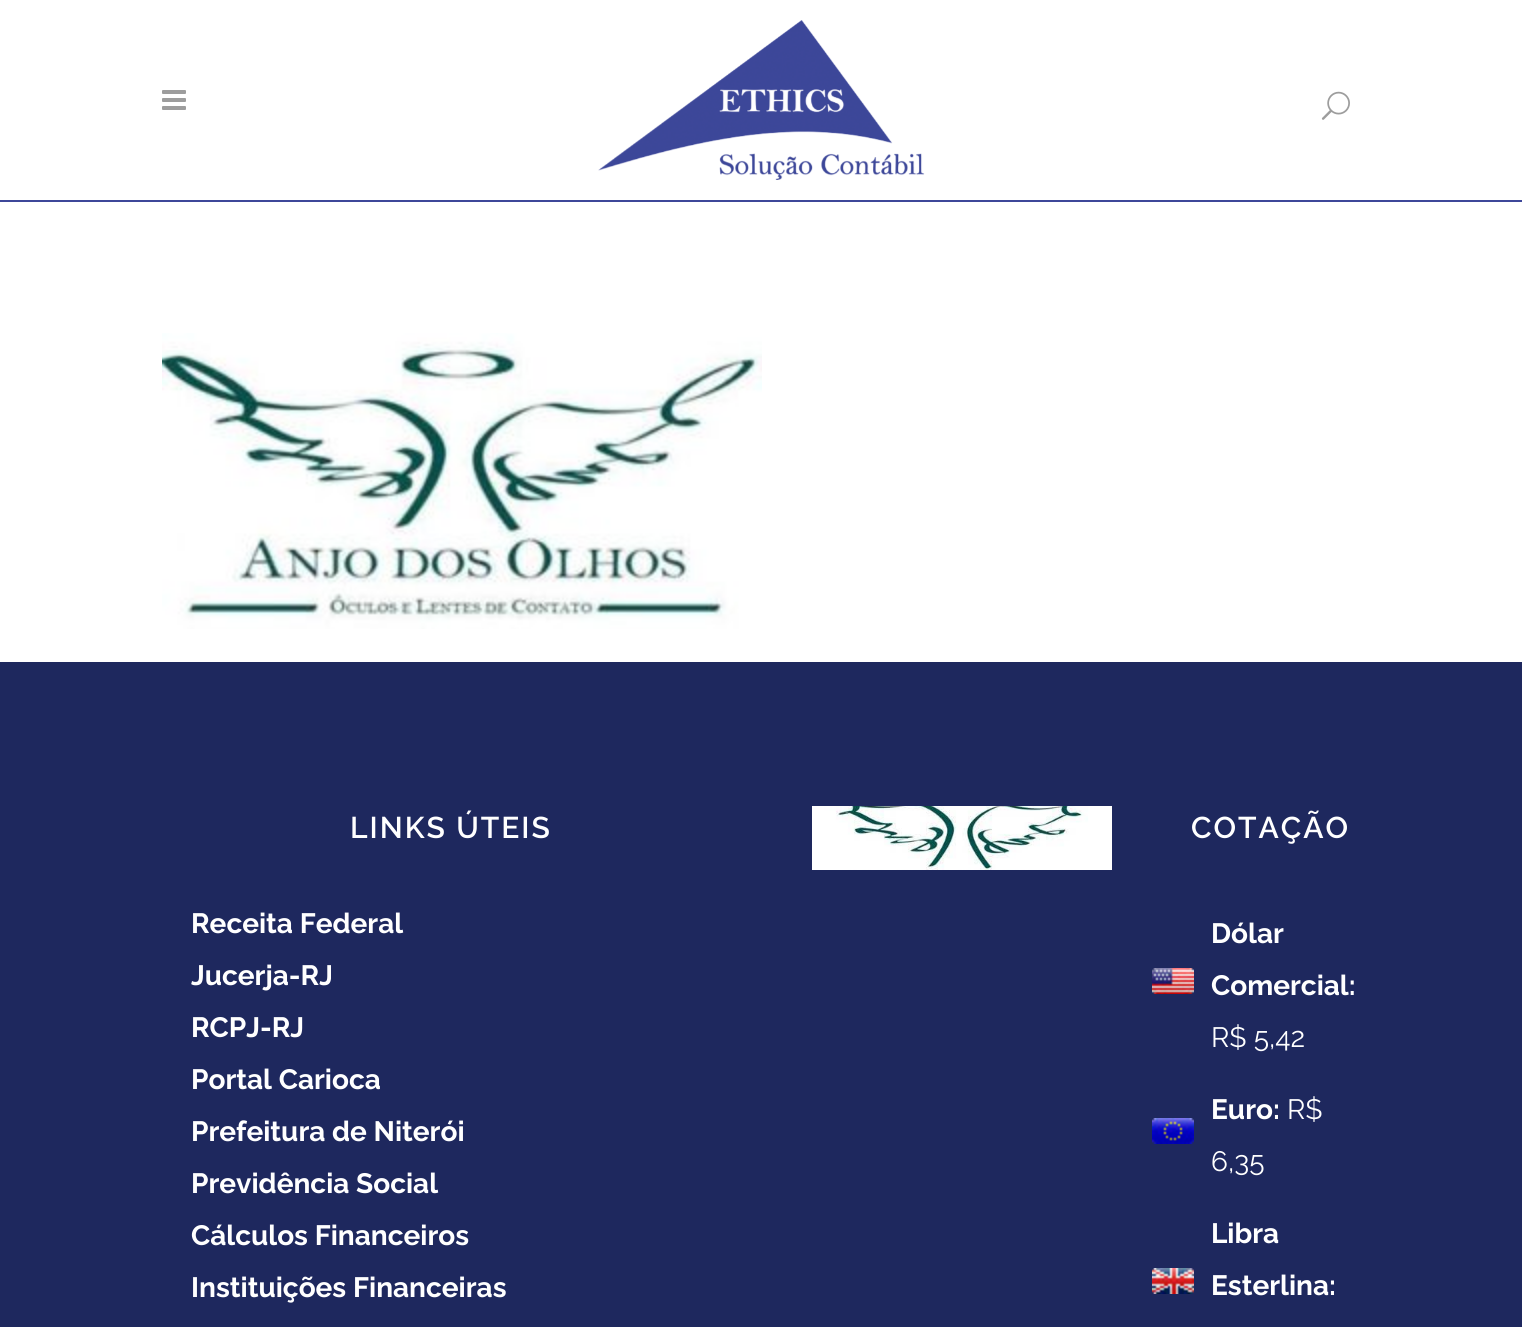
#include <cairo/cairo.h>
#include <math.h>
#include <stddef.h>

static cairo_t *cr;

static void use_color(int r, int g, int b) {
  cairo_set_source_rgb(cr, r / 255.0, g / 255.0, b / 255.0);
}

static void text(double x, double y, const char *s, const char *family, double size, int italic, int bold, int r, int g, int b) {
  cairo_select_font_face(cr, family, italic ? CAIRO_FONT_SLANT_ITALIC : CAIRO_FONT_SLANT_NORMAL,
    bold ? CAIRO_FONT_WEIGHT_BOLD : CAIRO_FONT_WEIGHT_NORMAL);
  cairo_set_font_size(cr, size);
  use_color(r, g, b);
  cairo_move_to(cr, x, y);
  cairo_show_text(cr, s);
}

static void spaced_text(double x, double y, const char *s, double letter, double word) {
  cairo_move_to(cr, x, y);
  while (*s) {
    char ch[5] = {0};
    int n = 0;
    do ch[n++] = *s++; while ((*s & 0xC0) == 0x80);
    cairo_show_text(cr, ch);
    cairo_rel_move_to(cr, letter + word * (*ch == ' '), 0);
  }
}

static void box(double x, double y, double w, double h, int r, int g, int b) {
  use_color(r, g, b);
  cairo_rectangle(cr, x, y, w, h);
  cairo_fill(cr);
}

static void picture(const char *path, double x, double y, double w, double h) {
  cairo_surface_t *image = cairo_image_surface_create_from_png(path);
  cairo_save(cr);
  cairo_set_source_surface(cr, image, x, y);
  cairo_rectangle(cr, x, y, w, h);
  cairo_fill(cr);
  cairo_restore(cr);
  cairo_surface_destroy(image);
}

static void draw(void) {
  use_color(255, 255, 255);
  cairo_paint(cr);
  box(0, 200, 1522, 2, 61, 71, 153);
  picture("img_01.png", 162, 90, 24, 20);
  picture("img_02.png", 598, 20, 327, 160);
  picture("img_03.png", 1321, 91, 29, 29);
  picture("img_04.png", 162, 333, 600, 296);
  box(0, 662, 1522, 665, 30, 40, 94);
  picture("img_05.png", 812, 806, 300, 64);
  picture("img_06.png", 1152, 968, 42, 26);
  picture("img_07.png", 1152, 1118, 42, 26);
  picture("img_08.png", 1152, 1268, 42, 26);
  cairo_select_font_face(cr, "Raleway SemiBold", CAIRO_FONT_SLANT_NORMAL, CAIRO_FONT_WEIGHT_NORMAL);
  cairo_set_font_size(cr, 30);
  use_color(255, 255, 255);
  spaced_text(350, 838, "LINKS ÚTEIS", 2, 0);
  text(191, 933, "Receita Federal", "Raleway", 28, 0, 1, 255, 255, 255);
  text(191, 985, "Jucerja-RJ", "Raleway", 28, 0, 1, 255, 255, 255);
  text(191, 1037, "RCPJ-RJ", "Raleway", 28, 0, 1, 255, 255, 255);
  text(191, 1089, "Portal Carioca", "Raleway", 28, 0, 1, 255, 255, 255);
  text(191, 1141, "Prefeitura de Niterói", "Raleway", 28, 0, 1, 255, 255, 255);
  text(191, 1193, "Previdência Social", "Raleway", 28, 0, 1, 255, 255, 255);
  text(191, 1245, "Cálculos Financeiros", "Raleway", 28, 0, 1, 255, 255, 255);
  text(191, 1297, "Instituições Financeiras", "Raleway", 28, 0, 1, 255, 255, 255);
  cairo_select_font_face(cr, "Raleway SemiBold", CAIRO_FONT_SLANT_NORMAL, CAIRO_FONT_WEIGHT_NORMAL);
  cairo_set_font_size(cr, 30);
  spaced_text(1191, 838, "COTAÇÃO", 2, 0);
  text(1211, 943, "Dólar", "Raleway", 28, 0, 1, 255, 255, 255);
  text(1211, 995, "Comercial:", "Raleway", 28, 0, 1, 255, 255, 255);
  text(1211, 1047, "R$ 5,42", "Raleway", 28, 0, 0, 255, 255, 255);
  text(1211, 1119, "Euro:", "Raleway", 28, 0, 1, 255, 255, 255);
  text(1287, 1119, "R$", "Raleway", 28, 0, 0, 255, 255, 255);
  text(1211, 1171, "6,35", "Raleway", 28, 0, 0, 255, 255, 255);
  text(1211, 1243, "Libra", "Raleway", 28, 0, 1, 255, 255, 255);
  text(1211, 1295, "Esterlina:", "Raleway", 28, 0, 1, 255, 255, 255);
}

int main(void) {
  cairo_surface_t *surface = cairo_image_surface_create(CAIRO_FORMAT_RGB24, 1522, 1327);
  cr = cairo_create(surface);
  cairo_font_options_t *options = cairo_font_options_create();
  cairo_font_options_set_hint_metrics(options, CAIRO_HINT_METRICS_OFF);
  cairo_font_options_set_hint_style(options, CAIRO_HINT_STYLE_NONE);
  cairo_set_font_options(cr, options);
  cairo_set_miter_limit(cr, 4);
  draw();
  cairo_surface_write_to_png(surface, "out.png");
  cairo_font_options_destroy(options);
  cairo_destroy(cr);
  cairo_surface_destroy(surface);
  return 0;
}
